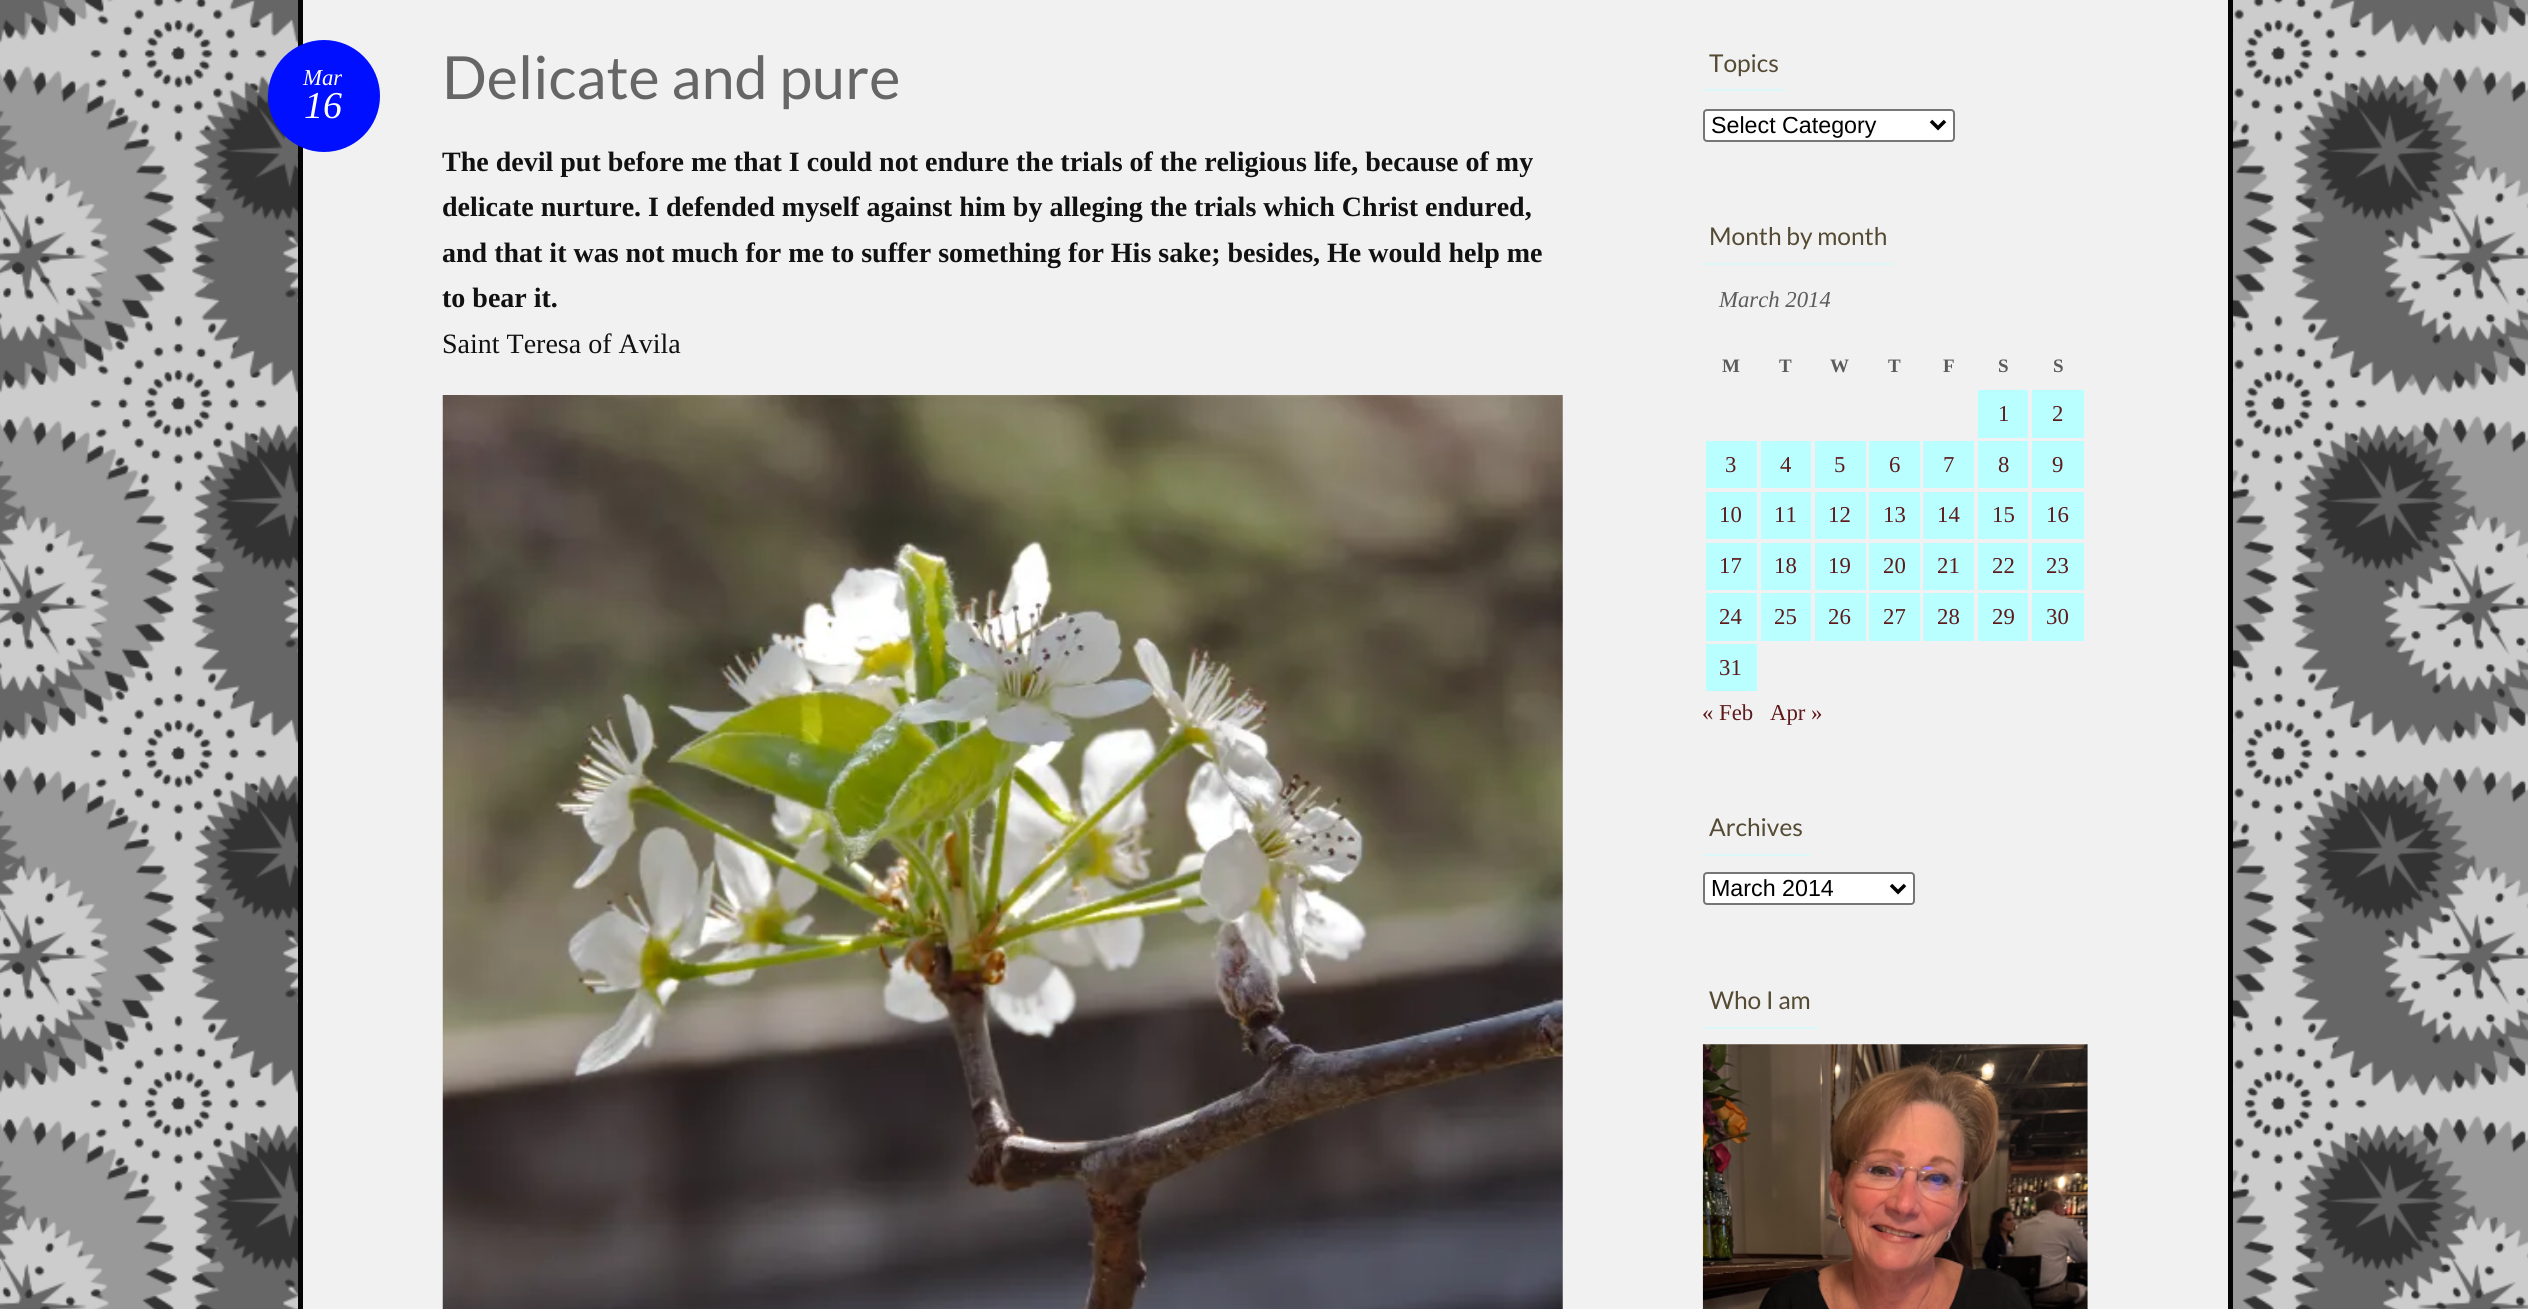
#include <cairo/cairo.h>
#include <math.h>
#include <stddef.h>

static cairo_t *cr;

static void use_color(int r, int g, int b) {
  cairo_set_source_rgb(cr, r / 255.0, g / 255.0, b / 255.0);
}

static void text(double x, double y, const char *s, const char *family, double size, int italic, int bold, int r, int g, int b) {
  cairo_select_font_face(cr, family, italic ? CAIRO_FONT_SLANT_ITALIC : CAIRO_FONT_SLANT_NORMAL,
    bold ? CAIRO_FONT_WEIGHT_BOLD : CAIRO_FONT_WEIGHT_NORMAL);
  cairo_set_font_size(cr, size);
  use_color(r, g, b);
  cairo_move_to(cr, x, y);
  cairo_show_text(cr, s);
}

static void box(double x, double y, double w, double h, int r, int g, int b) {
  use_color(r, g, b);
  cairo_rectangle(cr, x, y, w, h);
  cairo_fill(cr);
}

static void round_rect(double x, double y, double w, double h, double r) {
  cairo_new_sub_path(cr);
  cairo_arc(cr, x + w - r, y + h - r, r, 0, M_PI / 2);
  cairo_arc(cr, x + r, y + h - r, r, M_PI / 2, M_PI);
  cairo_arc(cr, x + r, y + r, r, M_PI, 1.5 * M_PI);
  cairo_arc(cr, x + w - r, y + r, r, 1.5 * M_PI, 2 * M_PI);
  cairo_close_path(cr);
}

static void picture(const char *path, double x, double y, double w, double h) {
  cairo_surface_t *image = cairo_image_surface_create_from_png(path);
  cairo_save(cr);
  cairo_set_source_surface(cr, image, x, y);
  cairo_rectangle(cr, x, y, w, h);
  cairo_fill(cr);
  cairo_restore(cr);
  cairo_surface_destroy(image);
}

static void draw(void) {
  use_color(255, 255, 255);
  cairo_paint(cr);
  picture("img_01.png", 0, 0, 2528, 1309);
  use_color(241, 241, 241);
  cairo_rectangle(cr, 300.5, -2.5, 1930, 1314);
  cairo_fill_preserve(cr);
  use_color(5, 5, 5);
  cairo_set_line_width(cr, 5);
  cairo_stroke(cr);
  use_color(0, 15, 255);
  cairo_arc(cr, 324, 96, 56, 0, 2 * M_PI);
  cairo_fill(cr);
  picture("img_02.png", 442, 395, 1121, 914);
  box(1703, 89, 82, 2, 219, 247, 247);
  use_color(255, 255, 255);
  round_rect(1704, 110, 250, 31, 3);
  cairo_fill_preserve(cr);
  use_color(118, 118, 118);
  cairo_set_line_width(cr, 2);
  cairo_stroke(cr);
  cairo_new_path(cr);
  cairo_move_to(cr, 1931, 121);
  cairo_line_to(cr, 1938, 128);
  cairo_line_to(cr, 1945, 121);
  use_color(0, 0, 0);
  cairo_set_line_width(cr, 3.5);
  cairo_stroke(cr);
  box(1703, 263, 191, 2, 219, 247, 247);
  box(1978, 390, 50, 48, 186, 255, 255);
  box(2032, 390, 52, 48, 186, 255, 255);
  box(1706, 441, 51, 47, 186, 255, 255);
  box(1761, 441, 50, 47, 186, 255, 255);
  box(1815, 441, 51, 47, 186, 255, 255);
  box(1869, 441, 51, 47, 186, 255, 255);
  box(1923, 441, 51, 47, 186, 255, 255);
  box(1978, 441, 50, 47, 186, 255, 255);
  box(2032, 441, 52, 47, 186, 255, 255);
  box(1706, 492, 51, 47, 186, 255, 255);
  box(1761, 492, 50, 47, 186, 255, 255);
  box(1815, 492, 51, 47, 186, 255, 255);
  box(1869, 492, 51, 47, 186, 255, 255);
  box(1923, 492, 51, 47, 186, 255, 255);
  box(1978, 492, 50, 47, 186, 255, 255);
  box(2032, 492, 52, 47, 186, 255, 255);
  box(1706, 543, 51, 47, 186, 255, 255);
  box(1761, 543, 50, 47, 186, 255, 255);
  box(1815, 543, 51, 47, 186, 255, 255);
  box(1869, 543, 51, 47, 186, 255, 255);
  box(1923, 543, 51, 47, 186, 255, 255);
  box(1978, 543, 50, 47, 186, 255, 255);
  box(2032, 543, 52, 47, 186, 255, 255);
  box(1706, 593, 51, 48, 186, 255, 255);
  box(1761, 593, 50, 48, 186, 255, 255);
  box(1815, 593, 51, 48, 186, 255, 255);
  box(1869, 593, 51, 48, 186, 255, 255);
  box(1923, 593, 51, 48, 186, 255, 255);
  box(1978, 593, 50, 48, 186, 255, 255);
  box(2032, 593, 52, 48, 186, 255, 255);
  box(1706, 644, 51, 47, 186, 255, 255);
  box(1703, 854, 107, 2, 219, 247, 247);
  use_color(255, 255, 255);
  round_rect(1704, 873, 210, 31, 3);
  cairo_fill_preserve(cr);
  use_color(118, 118, 118);
  cairo_set_line_width(cr, 2);
  cairo_stroke(cr);
  cairo_new_path(cr);
  cairo_move_to(cr, 1891, 885);
  cairo_line_to(cr, 1898, 892);
  cairo_line_to(cr, 1905, 885);
  use_color(0, 0, 0);
  cairo_set_line_width(cr, 3.5);
  cairo_stroke(cr);
  box(1703, 1027, 115, 2, 219, 247, 247);
  picture("img_03.png", 1702, 1044, 386, 265);
  text(303, 85, "Mar", "Liberation Serif", 22.75, 1, 0, 255, 255, 255);
  text(304, 118, "16", "Liberation Serif", 38, 1, 0, 255, 255, 255);
  text(442, 99, "Delicate and pure", "Lato", 59.5, 0, 0, 102, 102, 102);
  text(442, 171, "The devil put before me that I could not endure the trials of the religious life, because of my", "Liberation Serif", 28, 0, 1, 17, 17, 17);
  text(442, 216, "delicate nurture. I defended myself against him by alleging the trials which Christ endured,", "Liberation Serif", 28, 0, 1, 17, 17, 17);
  text(442, 262, "and that it was not much for me to suffer something for His sake; besides, He would help me", "Liberation Serif", 28, 0, 1, 17, 17, 17);
  text(442, 307, "to bear it.", "Liberation Serif", 28, 0, 1, 17, 17, 17);
  text(442, 353, "Saint Teresa of Avila", "Liberation Serif", 28, 0, 0, 17, 17, 17);
  text(1709, 72, "Topics", "Lato", 24.5, 0, 0, 85, 75, 52);
  text(1711, 133, "Select Category", "Liberation Sans", 23.25, 0, 0, 0, 0, 0);
  text(1709, 245, "Month by month", "Lato", 24.5, 0, 0, 85, 75, 52);
  text(1719, 307, "March 2014", "Liberation Serif", 22.75, 1, 0, 91, 91, 91);
  text(1722, 372, "M", "Liberation Serif", 19, 0, 1, 91, 91, 91);
  text(1779, 372, "T", "Liberation Serif", 19, 0, 1, 91, 91, 91);
  text(1830, 372, "W", "Liberation Serif", 19, 0, 1, 91, 91, 91);
  text(1888, 372, "T", "Liberation Serif", 19, 0, 1, 91, 91, 91);
  text(1943, 372, "F", "Liberation Serif", 19, 0, 1, 91, 91, 91);
  text(1998, 372, "S", "Liberation Serif", 19, 0, 1, 91, 91, 91);
  text(2053, 372, "S", "Liberation Serif", 19, 0, 1, 91, 91, 91);
  text(1998, 421, "1", "Liberation Serif", 22.75, 0, 0, 94, 25, 26);
  text(2052, 421, "2", "Liberation Serif", 22.75, 0, 0, 94, 25, 26);
  text(1725, 472, "3", "Liberation Serif", 22.75, 0, 0, 94, 25, 26);
  text(1780, 472, "4", "Liberation Serif", 22.75, 0, 0, 94, 25, 26);
  text(1834, 472, "5", "Liberation Serif", 22.75, 0, 0, 94, 25, 26);
  text(1889, 472, "6", "Liberation Serif", 22.75, 0, 0, 94, 25, 26);
  text(1943, 472, "7", "Liberation Serif", 22.75, 0, 0, 94, 25, 26);
  text(1998, 472, "8", "Liberation Serif", 22.75, 0, 0, 94, 25, 26);
  text(2052, 472, "9", "Liberation Serif", 22.75, 0, 0, 94, 25, 26);
  text(1719, 522, "10", "Liberation Serif", 22.75, 0, 0, 94, 25, 26);
  text(1774, 522, "11", "Liberation Serif", 22.75, 0, 0, 94, 25, 26);
  text(1828, 522, "12", "Liberation Serif", 22.75, 0, 0, 94, 25, 26);
  text(1883, 522, "13", "Liberation Serif", 22.75, 0, 0, 94, 25, 26);
  text(1937, 522, "14", "Liberation Serif", 22.75, 0, 0, 94, 25, 26);
  text(1992, 522, "15", "Liberation Serif", 22.75, 0, 0, 94, 25, 26);
  text(2046, 522, "16", "Liberation Serif", 22.75, 0, 0, 94, 25, 26);
  text(1719, 573, "17", "Liberation Serif", 22.75, 0, 0, 94, 25, 26);
  text(1774, 573, "18", "Liberation Serif", 22.75, 0, 0, 94, 25, 26);
  text(1828, 573, "19", "Liberation Serif", 22.75, 0, 0, 94, 25, 26);
  text(1883, 573, "20", "Liberation Serif", 22.75, 0, 0, 94, 25, 26);
  text(1937, 573, "21", "Liberation Serif", 22.75, 0, 0, 94, 25, 26);
  text(1992, 573, "22", "Liberation Serif", 22.75, 0, 0, 94, 25, 26);
  text(2046, 573, "23", "Liberation Serif", 22.75, 0, 0, 94, 25, 26);
  text(1719, 624, "24", "Liberation Serif", 22.75, 0, 0, 94, 25, 26);
  text(1774, 624, "25", "Liberation Serif", 22.75, 0, 0, 94, 25, 26);
  text(1828, 624, "26", "Liberation Serif", 22.75, 0, 0, 94, 25, 26);
  text(1883, 624, "27", "Liberation Serif", 22.75, 0, 0, 94, 25, 26);
  text(1937, 624, "28", "Liberation Serif", 22.75, 0, 0, 94, 25, 26);
  text(1992, 624, "29", "Liberation Serif", 22.75, 0, 0, 94, 25, 26);
  text(2046, 624, "30", "Liberation Serif", 22.75, 0, 0, 94, 25, 26);
  text(1719, 675, "31", "Liberation Serif", 22.75, 0, 0, 94, 25, 26);
  text(1702, 720, "« Feb", "Liberation Serif", 22.75, 0, 0, 94, 25, 26);
  text(1770, 720, "Apr »", "Liberation Serif", 22.75, 0, 0, 94, 25, 26);
  text(1709, 836, "Archives", "Lato", 24.5, 0, 0, 85, 75, 52);
  text(1711, 896, "March 2014", "Liberation Sans", 23.25, 0, 0, 0, 0, 0);
  text(1709, 1009, "Who I am", "Lato", 24.5, 0, 0, 85, 75, 52);
}

int main(void) {
  cairo_surface_t *surface = cairo_image_surface_create(CAIRO_FORMAT_RGB24, 2528, 1309);
  cr = cairo_create(surface);
  cairo_font_options_t *options = cairo_font_options_create();
  cairo_font_options_set_hint_metrics(options, CAIRO_HINT_METRICS_OFF);
  cairo_font_options_set_hint_style(options, CAIRO_HINT_STYLE_NONE);
  cairo_set_font_options(cr, options);
  cairo_set_miter_limit(cr, 4);
  draw();
  cairo_surface_write_to_png(surface, "out.png");
  cairo_font_options_destroy(options);
  cairo_destroy(cr);
  cairo_surface_destroy(surface);
  return 0;
}
